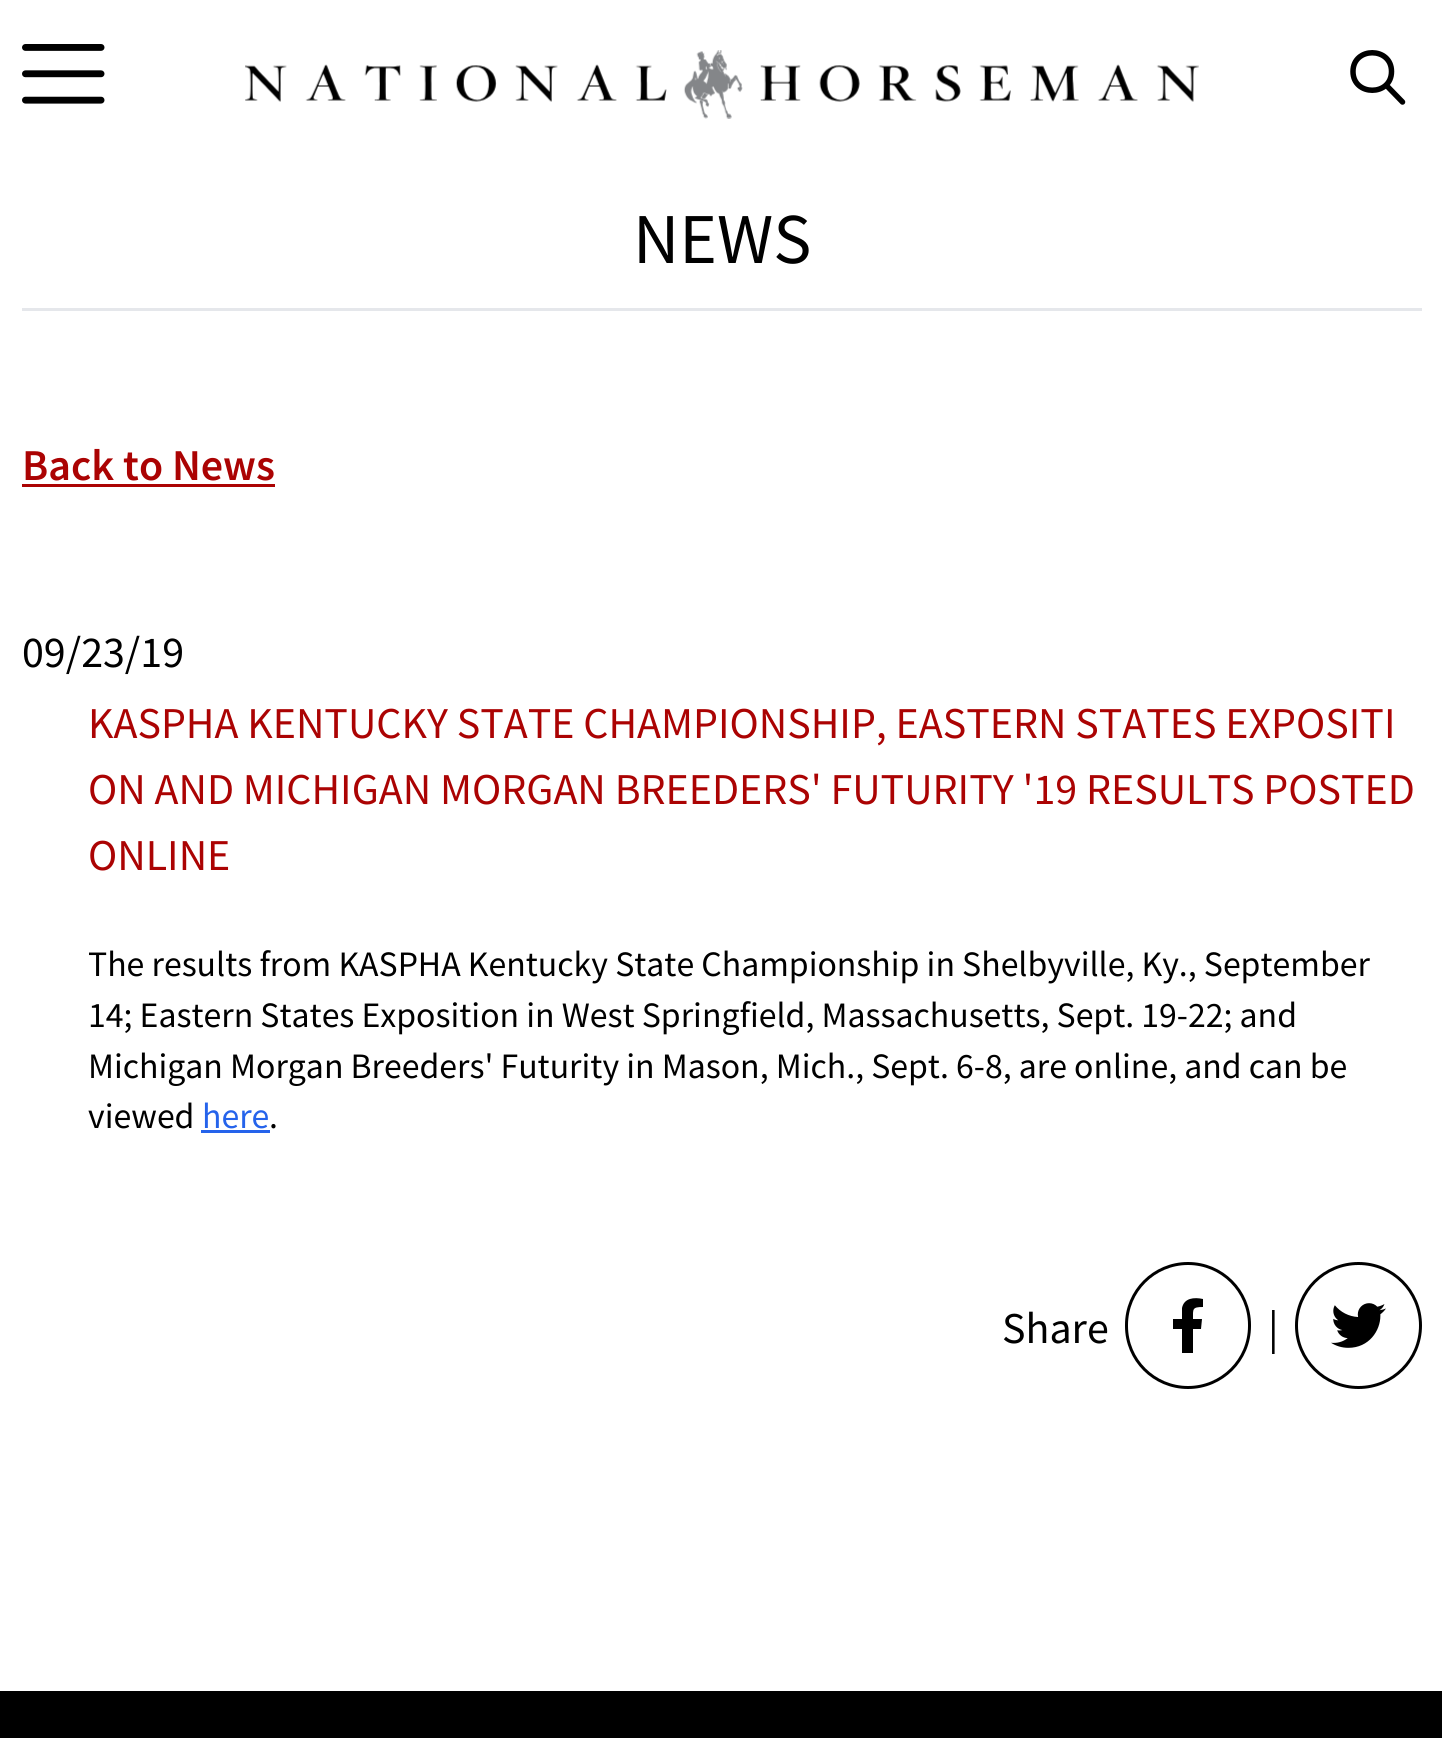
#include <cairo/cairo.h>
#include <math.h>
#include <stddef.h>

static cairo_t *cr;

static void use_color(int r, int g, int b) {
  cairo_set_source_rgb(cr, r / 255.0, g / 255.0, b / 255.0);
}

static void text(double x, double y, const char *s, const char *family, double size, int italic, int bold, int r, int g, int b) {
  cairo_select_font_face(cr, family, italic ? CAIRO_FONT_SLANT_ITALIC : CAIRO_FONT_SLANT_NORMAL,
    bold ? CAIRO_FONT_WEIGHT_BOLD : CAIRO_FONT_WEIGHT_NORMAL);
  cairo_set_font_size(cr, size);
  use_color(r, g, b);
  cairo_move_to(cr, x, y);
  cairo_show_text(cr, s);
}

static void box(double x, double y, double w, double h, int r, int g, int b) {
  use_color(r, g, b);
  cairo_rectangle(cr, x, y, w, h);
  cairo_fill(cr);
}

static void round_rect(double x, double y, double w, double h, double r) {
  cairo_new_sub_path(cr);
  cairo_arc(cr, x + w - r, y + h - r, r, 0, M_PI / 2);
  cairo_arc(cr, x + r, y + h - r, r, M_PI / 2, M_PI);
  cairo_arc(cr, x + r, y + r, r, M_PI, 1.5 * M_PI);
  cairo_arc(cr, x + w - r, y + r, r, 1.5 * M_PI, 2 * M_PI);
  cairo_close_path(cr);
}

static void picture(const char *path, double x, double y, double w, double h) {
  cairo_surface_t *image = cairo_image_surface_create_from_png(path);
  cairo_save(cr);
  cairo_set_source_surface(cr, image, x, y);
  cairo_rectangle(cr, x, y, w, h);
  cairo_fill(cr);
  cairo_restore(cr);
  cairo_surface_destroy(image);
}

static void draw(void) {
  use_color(255, 255, 255);
  cairo_paint(cr);
  picture("img_01.png", 22, 44, 83, 60);
  picture("img_02.png", 245, 50, 954, 69);
  cairo_new_path(cr);
  cairo_move_to(cr, 1402.5, 102);
  cairo_line_to(cr, 1386, 85);
  cairo_move_to(cr, 1391.5, 71.5);
  cairo_curve_to(cr, 1391.5, 96.5, 1353, 96.5, 1353, 71.5);
  cairo_curve_to(cr, 1353, 46.5, 1391.5, 46.5, 1391.5, 71.5);
  cairo_close_path(cr);
  use_color(0, 0, 0);
  cairo_set_line_width(cr, 5.5);
  cairo_set_line_cap(cr, CAIRO_LINE_CAP_ROUND);
  cairo_set_line_join(cr, CAIRO_LINE_JOIN_ROUND);
  cairo_stroke(cr);
  box(22, 308, 1400, 3, 229, 231, 235);
  box(22, 484, 253, 3, 171, 3, 3);
  box(201, 1130, 69, 3, 37, 99, 235);
  round_rect(1126.5, 1263.5, 123, 124, 61.5);
  use_color(0, 0, 0);
  cairo_set_line_width(cr, 3);
  cairo_set_line_cap(cr, CAIRO_LINE_CAP_BUTT);
  cairo_set_line_join(cr, CAIRO_LINE_JOIN_MITER);
  cairo_stroke(cr);
  cairo_new_path(cr);
  cairo_move_to(cr, 1201, 1329);
  cairo_line_to(cr, 1202, 1319);
  cairo_line_to(cr, 1193, 1319);
  cairo_curve_to(cr, 1193, 1309, 1192, 1307, 1203, 1307);
  cairo_line_to(cr, 1203, 1299);
  cairo_curve_to(cr, 1194, 1297, 1184, 1298, 1182, 1308);
  cairo_line_to(cr, 1182, 1319);
  cairo_line_to(cr, 1173, 1319);
  cairo_line_to(cr, 1173, 1329);
  cairo_line_to(cr, 1182, 1329);
  cairo_line_to(cr, 1182, 1353);
  cairo_line_to(cr, 1193, 1353);
  cairo_line_to(cr, 1193, 1329);
  cairo_close_path(cr);
  cairo_fill(cr);
  cairo_arc(cr, 1358.5, 1325.5, 62, 0, 2 * M_PI);
  cairo_stroke(cr);
  picture("img_03.png", 1331, 1303, 55, 45);
  box(0, 1691, 1442, 47, 0, 0, 0);
  text(633, 263, "NEWS", "Source Sans Pro", 71.5, 0, 0, 0, 0, 0);
  text(22, 480, "Back to News", "Source Sans Pro SemiBold", 44, 0, 0, 171, 3, 3);
  text(22, 667, "09/23/19", "Source Sans Pro", 44, 0, 0, 0, 0, 0);
  text(88, 738, "KASPHA KENTUCKY STATE CHAMPIONSHIP, EASTERN STATES EXPOSITI", "Source Sans Pro", 44, 0, 0, 171, 3, 3);
  text(88, 804, "ON AND MICHIGAN MORGAN BREEDERS' FUTURITY '19 RESULTS POSTED", "Source Sans Pro", 44, 0, 0, 171, 3, 3);
  text(88, 870, "ONLINE", "Source Sans Pro", 44, 0, 0, 171, 3, 3);
  text(88, 976, "The results from KASPHA Kentucky State Championship in Shelbyville, Ky., September", "Source Sans Pro", 35.75, 0, 0, 0, 0, 0);
  text(88, 1027, "14; Eastern States Exposition in West Springfield, Massachusetts, Sept. 19-22; and", "Source Sans Pro", 35.75, 0, 0, 0, 0, 0);
  text(88, 1078, "Michigan Morgan Breeders' Futurity in Mason, Mich., Sept. 6-8, are online, and can be", "Source Sans Pro", 35.75, 0, 0, 0, 0, 0);
  text(88, 1128, "viewed", "Source Sans Pro", 35.75, 0, 0, 0, 0, 0);
  text(202, 1128, "here", "Source Sans Pro", 35.75, 0, 0, 37, 99, 235);
  text(269, 1128, ".", "Source Sans Pro", 35.75, 0, 0, 0, 0, 0);
  text(1002, 1343, "Share", "Source Sans Pro", 44, 0, 0, 0, 0, 0);
  text(1268, 1343, "|", "Source Sans Pro", 44, 0, 0, 0, 0, 0);
}

int main(void) {
  cairo_surface_t *surface = cairo_image_surface_create(CAIRO_FORMAT_RGB24, 1442, 1738);
  cr = cairo_create(surface);
  cairo_font_options_t *options = cairo_font_options_create();
  cairo_font_options_set_hint_metrics(options, CAIRO_HINT_METRICS_OFF);
  cairo_font_options_set_hint_style(options, CAIRO_HINT_STYLE_NONE);
  cairo_set_font_options(cr, options);
  cairo_set_miter_limit(cr, 4);
  draw();
  cairo_surface_write_to_png(surface, "out.png");
  cairo_font_options_destroy(options);
  cairo_destroy(cr);
  cairo_surface_destroy(surface);
  return 0;
}
